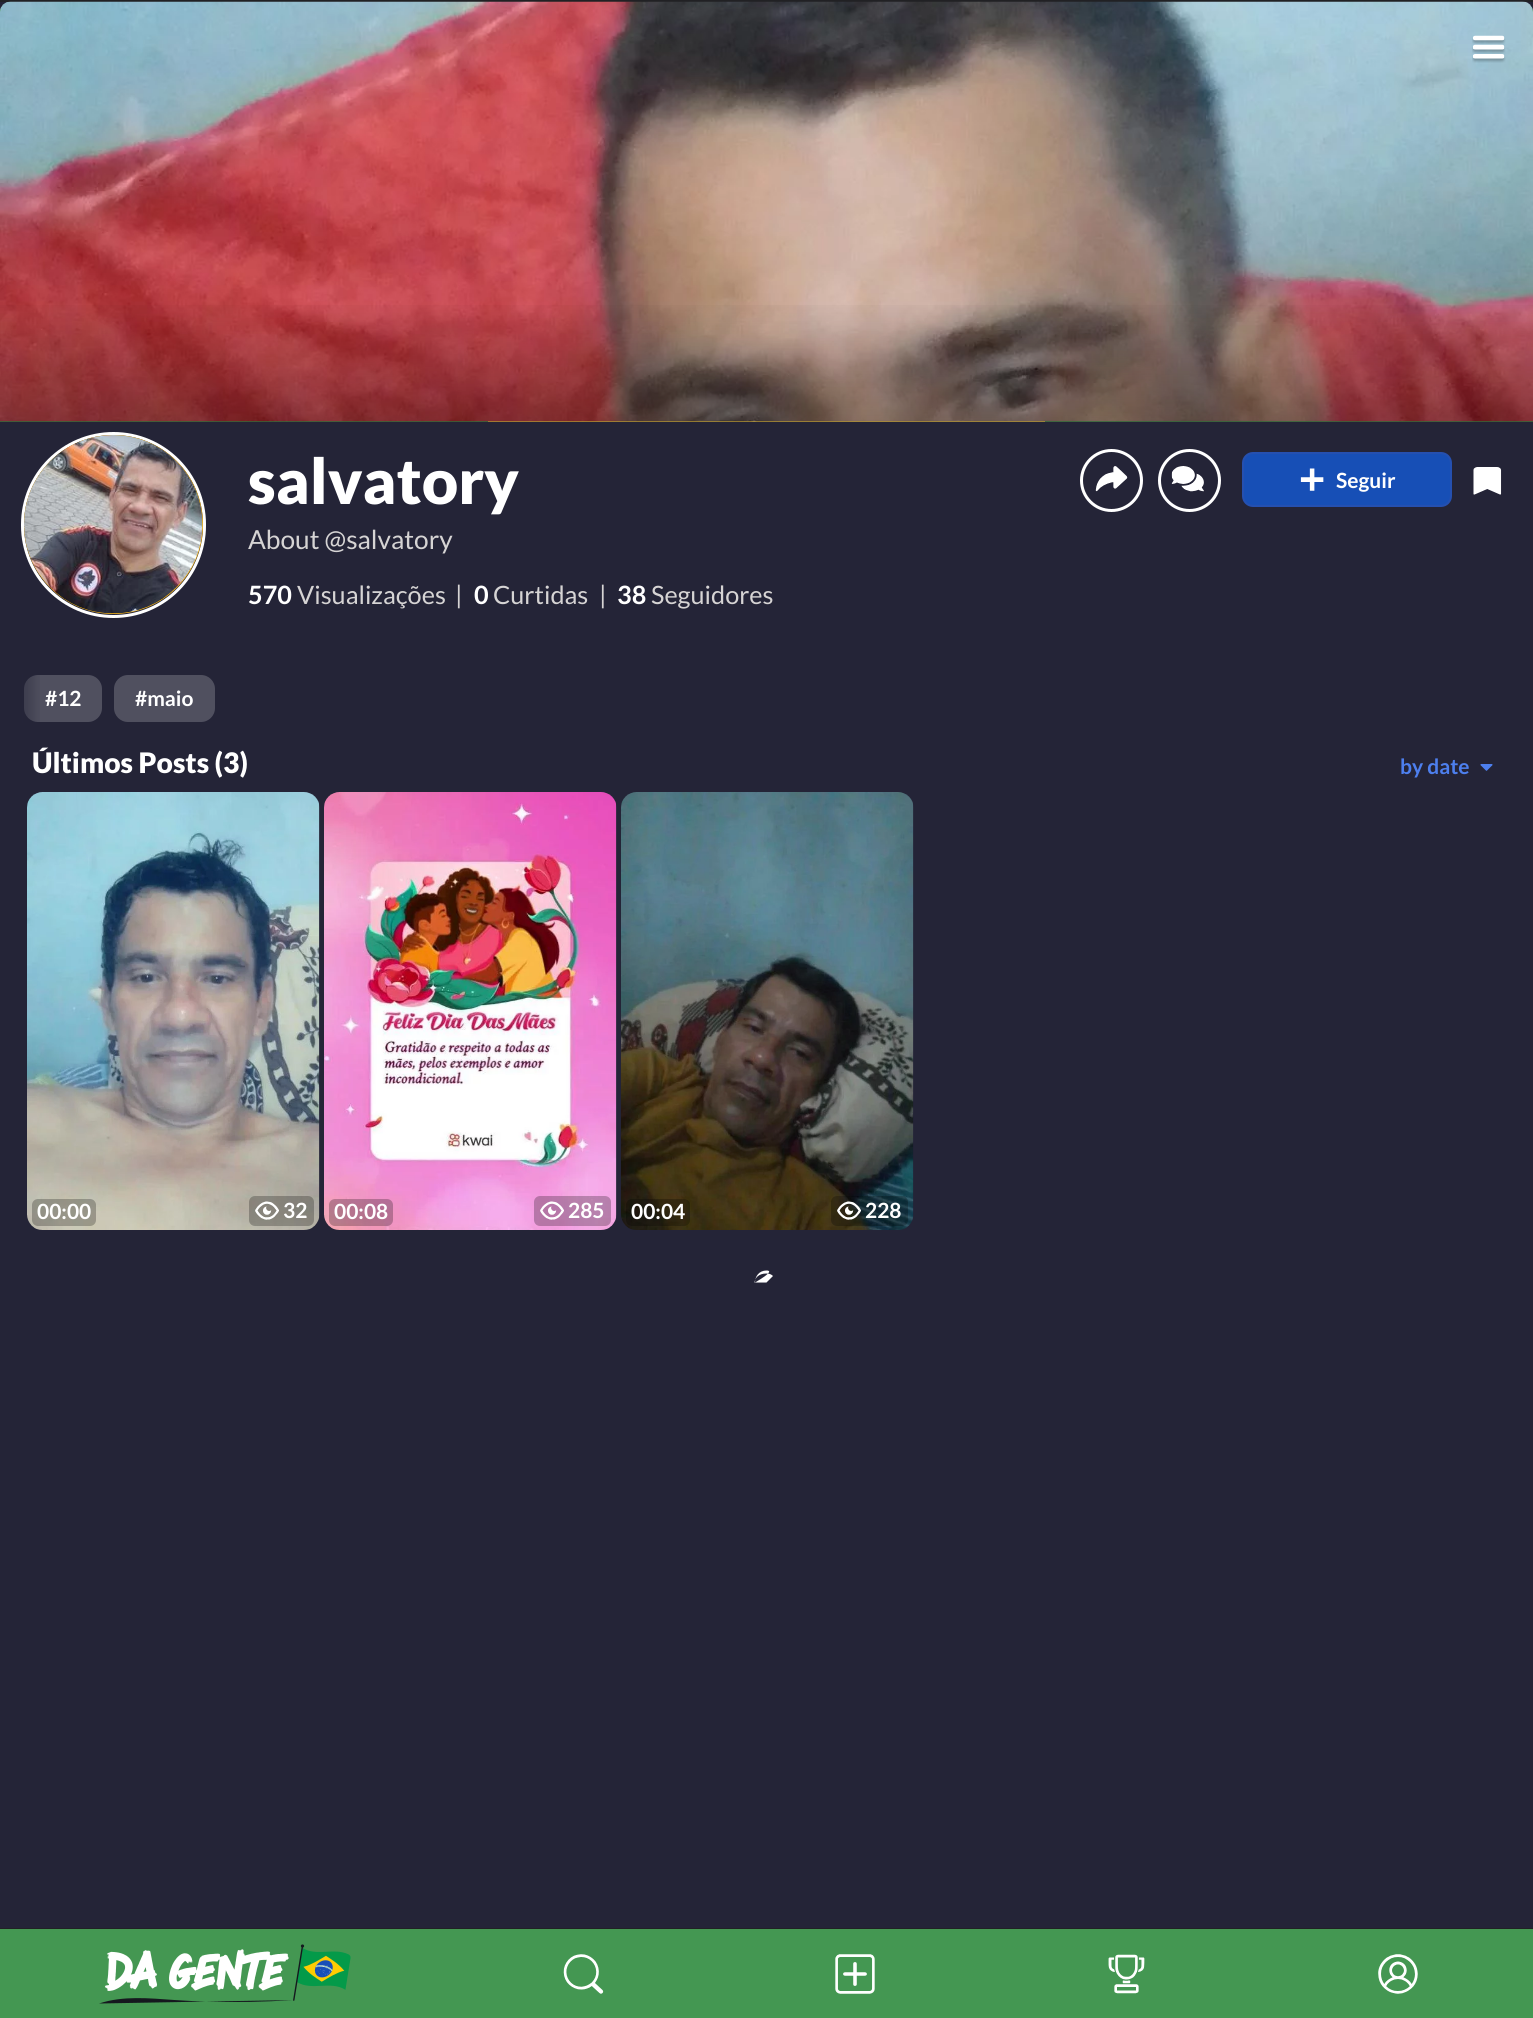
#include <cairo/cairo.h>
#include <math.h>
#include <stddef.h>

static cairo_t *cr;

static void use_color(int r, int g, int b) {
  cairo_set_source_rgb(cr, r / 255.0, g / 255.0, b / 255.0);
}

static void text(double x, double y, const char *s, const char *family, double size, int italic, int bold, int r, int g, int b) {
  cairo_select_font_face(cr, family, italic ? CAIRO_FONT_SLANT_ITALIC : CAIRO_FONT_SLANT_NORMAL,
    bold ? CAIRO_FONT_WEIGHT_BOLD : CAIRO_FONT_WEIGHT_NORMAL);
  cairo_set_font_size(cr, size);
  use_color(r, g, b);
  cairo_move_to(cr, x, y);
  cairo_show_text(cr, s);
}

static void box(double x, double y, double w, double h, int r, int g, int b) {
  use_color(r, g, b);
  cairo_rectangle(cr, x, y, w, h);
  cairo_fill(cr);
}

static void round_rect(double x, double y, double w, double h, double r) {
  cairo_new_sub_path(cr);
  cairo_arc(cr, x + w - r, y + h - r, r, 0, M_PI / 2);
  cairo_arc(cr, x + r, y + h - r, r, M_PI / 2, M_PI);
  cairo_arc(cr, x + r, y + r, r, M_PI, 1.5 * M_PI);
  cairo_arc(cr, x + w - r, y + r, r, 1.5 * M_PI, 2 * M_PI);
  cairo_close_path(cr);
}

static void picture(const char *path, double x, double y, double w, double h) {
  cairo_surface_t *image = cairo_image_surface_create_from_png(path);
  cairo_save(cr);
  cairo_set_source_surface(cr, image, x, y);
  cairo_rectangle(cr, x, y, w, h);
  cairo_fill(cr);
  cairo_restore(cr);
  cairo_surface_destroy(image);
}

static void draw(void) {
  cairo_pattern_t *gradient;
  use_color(33, 33, 36);
  cairo_paint(cr);
  box(0, 2, 1533, 1926, 36, 36, 55);
  gradient = cairo_pattern_create_linear(1255, 700, 278, -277);
  cairo_pattern_add_color_stop_rgba(gradient, 0.25, 0.267, 0.592, 0.322, 1);
  cairo_pattern_add_color_stop_rgba(gradient, 0.25, 0.969, 0.804, 0.275, 1);
  cairo_set_source(cr, gradient);
  cairo_pattern_destroy(gradient);
  cairo_new_path(cr);
  cairo_move_to(cr, 11, 2);
  cairo_line_to(cr, 1522, 2);
  cairo_curve_to(cr, 1528, 2, 1533, 7, 1533, 13);
  cairo_line_to(cr, 1533, 422);
  cairo_line_to(cr, 0, 422);
  cairo_line_to(cr, 0, 13);
  cairo_curve_to(cr, 0, 7, 5, 2, 11, 2);
  cairo_close_path(cr);
  cairo_fill(cr);
  gradient = cairo_pattern_create_linear(278, 700, 1255, -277);
  cairo_pattern_add_color_stop_rgba(gradient, 0.25, 0.267, 0.592, 0.322, 1);
  cairo_pattern_add_color_stop_rgba(gradient, 0.25, 0.267, 0.592, 0.322, 0);
  cairo_set_source(cr, gradient);
  cairo_pattern_destroy(gradient);
  cairo_new_path(cr);
  cairo_move_to(cr, 11, 2);
  cairo_line_to(cr, 1522, 2);
  cairo_curve_to(cr, 1528, 2, 1533, 7, 1533, 13);
  cairo_line_to(cr, 1533, 422);
  cairo_line_to(cr, 0, 422);
  cairo_line_to(cr, 0, 13);
  cairo_curve_to(cr, 0, 7, 5, 2, 11, 2);
  cairo_close_path(cr);
  cairo_fill(cr);
  gradient = cairo_pattern_create_linear(1255, -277, 278, 700);
  cairo_pattern_add_color_stop_rgba(gradient, 0.25, 0.267, 0.592, 0.322, 1);
  cairo_pattern_add_color_stop_rgba(gradient, 0.25, 0.267, 0.592, 0.322, 0);
  cairo_set_source(cr, gradient);
  cairo_pattern_destroy(gradient);
  cairo_new_path(cr);
  cairo_move_to(cr, 11, 2);
  cairo_line_to(cr, 1522, 2);
  cairo_curve_to(cr, 1528, 2, 1533, 7, 1533, 13);
  cairo_line_to(cr, 1533, 422);
  cairo_line_to(cr, 0, 422);
  cairo_line_to(cr, 0, 13);
  cairo_curve_to(cr, 0, 7, 5, 2, 11, 2);
  cairo_close_path(cr);
  cairo_fill(cr);
  gradient = cairo_pattern_create_linear(278, -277, 1255, 700);
  cairo_pattern_add_color_stop_rgba(gradient, 0.25, 0.267, 0.592, 0.322, 1);
  cairo_pattern_add_color_stop_rgba(gradient, 0.25, 0.267, 0.592, 0.322, 0);
  cairo_set_source(cr, gradient);
  cairo_pattern_destroy(gradient);
  cairo_new_path(cr);
  cairo_move_to(cr, 11, 2);
  cairo_line_to(cr, 1522, 2);
  cairo_curve_to(cr, 1528, 2, 1533, 7, 1533, 13);
  cairo_line_to(cr, 1533, 422);
  cairo_line_to(cr, 0, 422);
  cairo_line_to(cr, 0, 13);
  cairo_curve_to(cr, 0, 7, 5, 2, 11, 2);
  cairo_close_path(cr);
  cairo_fill(cr);
  picture("img_02.png", 0, 1, 1533, 421);
  picture("img_01.png", 1472, 35, 34, 28);
  gradient = cairo_pattern_create_linear(767, 422, 767, 1.5);
  cairo_pattern_add_color_stop_rgba(gradient, 0, 0, 0, 0, 0.3);
  cairo_pattern_add_color_stop_rgba(gradient, 0.3, 0, 0, 0, 0);
  cairo_set_source(cr, gradient);
  cairo_pattern_destroy(gradient);
  cairo_rectangle(cr, 0, 305, 1533, 117);
  cairo_fill(cr);
  round_rect(22.5, 433.5, 182, 183, 91);
  use_color(255, 255, 255);
  cairo_set_line_width(cr, 3);
  cairo_stroke(cr);
  use_color(251, 184, 22);
  cairo_arc(cr, 113.5, 524.5, 89.5, 0, 2 * M_PI);
  cairo_fill(cr);
  picture("img_03.png", 24, 435, 179, 179);
  cairo_arc(cr, 1111.5, 480.5, 30, 0, 2 * M_PI);
  use_color(255, 255, 255);
  cairo_stroke(cr);
  picture("img_04.png", 1095, 466, 33, 26);
  cairo_arc(cr, 1189.5, 480.5, 30, 0, 2 * M_PI);
  cairo_stroke(cr);
  picture("img_05.png", 1171, 466, 33, 26);
  use_color(23, 79, 182);
  round_rect(1243, 453, 208, 53, 10);
  cairo_fill_preserve(cr);
  use_color(37, 80, 176);
  cairo_set_line_width(cr, 2);
  cairo_stroke(cr);
  picture("img_06.png", 1300, 468, 24, 23);
  picture("img_07.png", 1473, 467, 29, 28);
  use_color(80, 80, 95);
  round_rect(22.5, 673.5, 81, 50, 15.5);
  cairo_fill_preserve(cr);
  use_color(36, 36, 55);
  cairo_set_line_width(cr, 3);
  cairo_stroke(cr);
  gradient = cairo_pattern_create_linear(42, 698, 0, 698);
  cairo_pattern_add_color_stop_rgba(gradient, 0, 0.141, 0.141, 0.216, 0);
  cairo_pattern_add_color_stop_rgba(gradient, 1, 0.141, 0.141, 0.216, 1);
  cairo_set_source(cr, gradient);
  cairo_pattern_destroy(gradient);
  cairo_rectangle(cr, 21, 674, 19, 49);
  cairo_fill(cr);
  use_color(80, 80, 95);
  round_rect(112.5, 673.5, 104, 50, 15.5);
  cairo_fill_preserve(cr);
  use_color(36, 36, 55);
  cairo_stroke(cr);
  picture("img_08.png", 1480, 764, 13, 7);
  picture("img_09.png", 27, 792, 293, 438);
  cairo_set_source_rgba(cr, 0, 0, 0, 0.25);
  round_rect(32, 1199, 64, 27, 6);
  cairo_fill(cr);
  round_rect(249, 1196, 65, 30, 6);
  cairo_fill(cr);
  picture("img_10.png", 255, 1201, 24, 19);
  picture("img_11.png", 324, 792, 293, 438);
  round_rect(329, 1199, 64, 27, 6);
  cairo_fill(cr);
  round_rect(534, 1196, 77, 30, 6);
  cairo_fill(cr);
  picture("img_12.png", 540, 1201, 24, 19);
  picture("img_13.png", 621, 792, 293, 438);
  round_rect(626, 1199, 64, 27, 6);
  cairo_fill(cr);
  round_rect(831, 1196, 77, 30, 6);
  cairo_fill(cr);
  picture("img_14.png", 837, 1201, 24, 19);
  use_color(255, 255, 255);
  cairo_set_fill_rule(cr, CAIRO_FILL_RULE_EVEN_ODD);
  cairo_new_path(cr);
  cairo_move_to(cr, 766.5, 1273.5);
  cairo_curve_to(cr, 769.5, 1273.5, 771.5, 1274.5, 773, 1276);
  cairo_line_to(cr, 766.5, 1282.5);
  cairo_line_to(cr, 754.5, 1282.5);
  cairo_curve_to(cr, 755, 1278, 758.5, 1273.5, 766.5, 1273.5);
  cairo_close_path(cr);
  cairo_move_to(cr, 766.5, 1270.5);
  cairo_curve_to(cr, 759, 1270.5, 755, 1276.5, 755, 1282.5);
  cairo_curve_to(cr, 773, 1272, 770, 1270.5, 766.5, 1270.5);
  cairo_close_path(cr);
  cairo_fill(cr);
  box(0, 1929, 1533, 89, 68, 151, 82);
  picture("img_15.png", 99, 1944, 252, 60);
  picture("img_16.png", 563, 1954, 41, 40);
  picture("img_17.png", 835, 1954, 40, 40);
  picture("img_18.png", 1108, 1954, 37, 40);
  picture("img_19.png", 1378, 1954, 40, 40);
  text(248, 504, "salvatory", "Lato Black", 63, 0, 0, 255, 255, 255);
  text(248, 549, "About @salvatory", "Lato", 26.25, 0, 0, 214, 212, 212);
  text(1336, 488, "Seguir", "Lato", 21, 0, 1, 255, 255, 255);
  text(248, 604, "570", "Lato", 25.25, 0, 1, 255, 255, 255);
  text(297, 604, "Visualizações", "Lato", 25.25, 0, 0, 214, 212, 212);
  text(455, 604, "|", "Lato", 25.25, 0, 0, 214, 212, 212);
  text(474, 604, "0", "Lato", 25.25, 0, 1, 255, 255, 255);
  text(493, 604, "Curtidas", "Lato", 25.25, 0, 0, 214, 212, 212);
  text(599, 604, "|", "Lato", 25.25, 0, 0, 214, 212, 212);
  text(617, 604, "38", "Lato", 25.25, 0, 1, 255, 255, 255);
  text(651, 604, "Seguidores", "Lato", 25.25, 0, 0, 214, 212, 212);
  text(45, 706, "#12", "Lato", 21, 0, 1, 255, 255, 255);
  text(135, 706, "#maio", "Lato", 21, 0, 1, 255, 255, 255);
  text(32, 773, "Últimos Posts (3)", "Lato Black", 28.25, 0, 0, 255, 255, 255);
  text(1400, 774, "by date", "Lato", 21, 0, 1, 77, 127, 238);
  text(37, 1219, "00:00", "Lato", 21, 0, 1, 255, 255, 255);
  text(283, 1218, "32", "Lato", 21, 0, 1, 255, 255, 255);
  text(334, 1219, "00:08", "Lato", 21, 0, 1, 255, 255, 255);
  text(568, 1218, "285", "Lato", 21, 0, 1, 255, 255, 255);
  text(631, 1219, "00:04", "Lato", 21, 0, 1, 255, 255, 255);
  text(865, 1218, "228", "Lato", 21, 0, 1, 255, 255, 255);
}

int main(void) {
  cairo_surface_t *surface = cairo_image_surface_create(CAIRO_FORMAT_RGB24, 1533, 2018);
  cr = cairo_create(surface);
  cairo_font_options_t *options = cairo_font_options_create();
  cairo_font_options_set_hint_metrics(options, CAIRO_HINT_METRICS_OFF);
  cairo_font_options_set_hint_style(options, CAIRO_HINT_STYLE_NONE);
  cairo_set_font_options(cr, options);
  cairo_set_miter_limit(cr, 4);
  draw();
  cairo_surface_write_to_png(surface, "out.png");
  cairo_font_options_destroy(options);
  cairo_destroy(cr);
  cairo_surface_destroy(surface);
  return 0;
}
